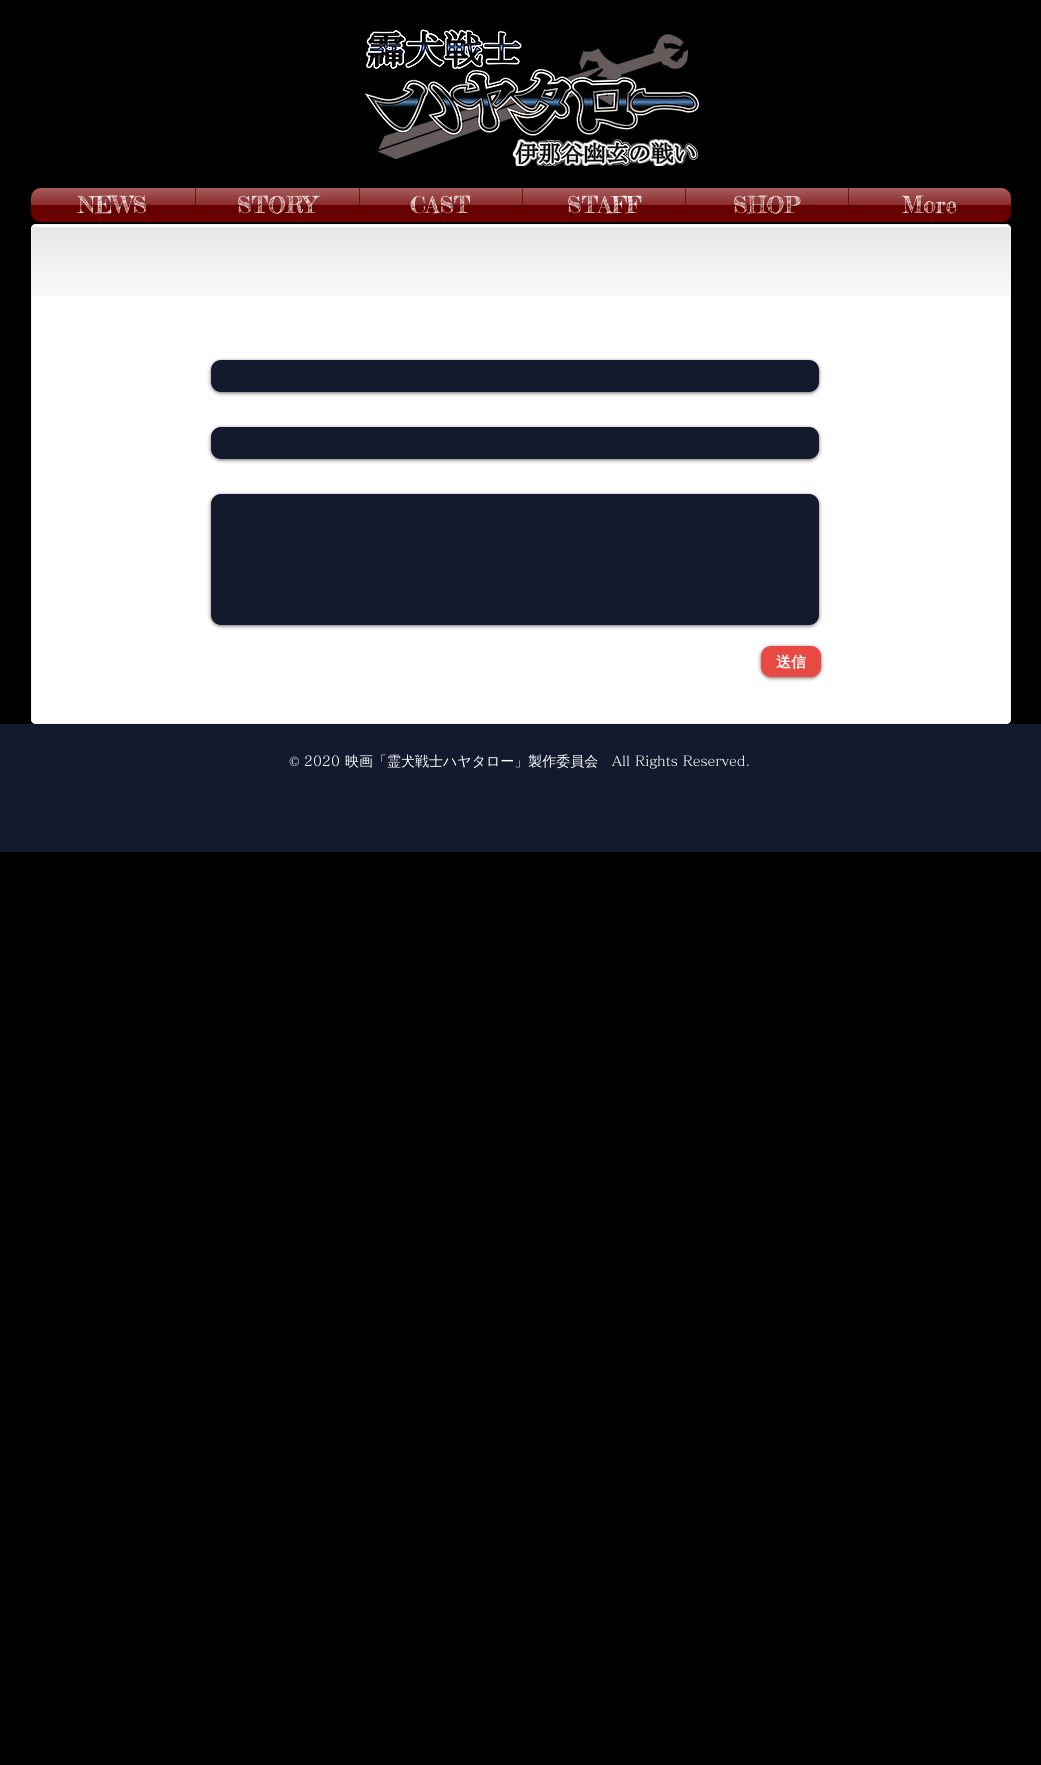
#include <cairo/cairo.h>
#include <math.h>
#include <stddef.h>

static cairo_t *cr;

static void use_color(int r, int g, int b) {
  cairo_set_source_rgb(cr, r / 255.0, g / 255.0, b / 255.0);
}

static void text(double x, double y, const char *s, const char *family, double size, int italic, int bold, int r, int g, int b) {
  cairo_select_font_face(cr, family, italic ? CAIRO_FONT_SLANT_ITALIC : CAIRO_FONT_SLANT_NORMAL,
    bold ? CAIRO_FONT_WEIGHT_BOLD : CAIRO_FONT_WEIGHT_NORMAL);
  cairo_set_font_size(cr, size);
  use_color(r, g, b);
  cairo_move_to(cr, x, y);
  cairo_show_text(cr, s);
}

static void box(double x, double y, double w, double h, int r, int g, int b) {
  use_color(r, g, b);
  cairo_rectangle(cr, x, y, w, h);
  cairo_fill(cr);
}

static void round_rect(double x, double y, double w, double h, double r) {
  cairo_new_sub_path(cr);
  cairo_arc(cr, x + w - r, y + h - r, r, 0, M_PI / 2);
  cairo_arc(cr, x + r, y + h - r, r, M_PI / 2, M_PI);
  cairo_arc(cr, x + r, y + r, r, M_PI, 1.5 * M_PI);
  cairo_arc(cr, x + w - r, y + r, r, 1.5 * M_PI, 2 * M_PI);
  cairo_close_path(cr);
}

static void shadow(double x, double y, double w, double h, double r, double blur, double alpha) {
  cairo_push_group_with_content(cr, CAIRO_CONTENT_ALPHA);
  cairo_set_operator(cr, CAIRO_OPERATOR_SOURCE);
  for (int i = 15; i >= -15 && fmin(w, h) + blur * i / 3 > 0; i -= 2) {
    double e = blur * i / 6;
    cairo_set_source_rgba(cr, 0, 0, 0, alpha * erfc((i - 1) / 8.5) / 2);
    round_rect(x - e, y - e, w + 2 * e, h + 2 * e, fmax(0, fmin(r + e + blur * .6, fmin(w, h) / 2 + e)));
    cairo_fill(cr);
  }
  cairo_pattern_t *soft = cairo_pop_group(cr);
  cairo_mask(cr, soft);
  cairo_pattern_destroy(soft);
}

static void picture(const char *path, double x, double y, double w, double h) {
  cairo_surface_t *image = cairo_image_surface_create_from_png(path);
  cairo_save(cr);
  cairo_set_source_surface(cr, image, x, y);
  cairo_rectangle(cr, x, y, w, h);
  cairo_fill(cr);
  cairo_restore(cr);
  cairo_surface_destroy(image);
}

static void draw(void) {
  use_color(0, 0, 0);
  cairo_paint(cr);
  picture("img_01.png", 364, 29, 335, 137);
  use_color(79, 0, 0);
  round_rect(31, 188, 980, 34, 10);
  cairo_fill(cr);
  picture("img_02.png", 31, 188, 980, 28);
  cairo_set_source_rgba(cr, 0.545, 0, 0, 0.57);
  cairo_new_path(cr);
  cairo_move_to(cr, 41, 188);
  cairo_line_to(cr, 195, 188);
  cairo_line_to(cr, 195, 222);
  cairo_line_to(cr, 41, 222);
  cairo_curve_to(cr, 35.5, 222, 31, 217.5, 31, 212);
  cairo_line_to(cr, 31, 198);
  cairo_curve_to(cr, 31, 192.5, 35.5, 188, 41, 188);
  cairo_close_path(cr);
  cairo_fill(cr);
  cairo_rectangle(cr, 195, 188, 164, 34);
  cairo_fill(cr);
  cairo_set_source_rgba(cr, 0, 0, 0, 0.14);
  cairo_rectangle(cr, 195, 188, 1, 34);
  cairo_fill(cr);
  cairo_set_source_rgba(cr, 0.545, 0, 0, 0.57);
  cairo_rectangle(cr, 359, 188, 163, 34);
  cairo_fill(cr);
  cairo_set_source_rgba(cr, 0, 0, 0, 0.14);
  cairo_rectangle(cr, 359, 188, 1, 34);
  cairo_fill(cr);
  cairo_set_source_rgba(cr, 0.545, 0, 0, 0.57);
  cairo_rectangle(cr, 522, 188, 163, 34);
  cairo_fill(cr);
  cairo_set_source_rgba(cr, 0, 0, 0, 0.14);
  cairo_rectangle(cr, 522, 188, 1, 34);
  cairo_fill(cr);
  cairo_set_source_rgba(cr, 0.545, 0, 0, 0.57);
  cairo_rectangle(cr, 685, 188, 163, 34);
  cairo_fill(cr);
  cairo_set_source_rgba(cr, 0, 0, 0, 0.14);
  cairo_rectangle(cr, 685, 188, 1, 34);
  cairo_fill(cr);
  cairo_set_source_rgba(cr, 0.545, 0, 0, 0.57);
  cairo_new_path(cr);
  cairo_move_to(cr, 848, 188);
  cairo_line_to(cr, 1001, 188);
  cairo_curve_to(cr, 1006.5, 188, 1011, 192.5, 1011, 198);
  cairo_line_to(cr, 1011, 212);
  cairo_curve_to(cr, 1011, 217.5, 1006.5, 222, 1001, 222);
  cairo_line_to(cr, 848, 222);
  cairo_close_path(cr);
  cairo_fill(cr);
  cairo_set_source_rgba(cr, 0, 0, 0, 0.14);
  cairo_rectangle(cr, 848, 188, 1, 34);
  cairo_fill(cr);
  use_color(255, 255, 255);
  round_rect(31, 224, 980, 500, 5);
  cairo_fill(cr);
  picture("img_09.png", 31, 227, 980, 69);
  round_rect(31.5, 224.5, 979, 499, 4.5);
  use_color(242, 242, 242);
  cairo_set_line_width(cr, 1);
  cairo_stroke(cr);
  use_color(0, 0, 0);
  shadow(211, 361, 608, 32, 10, 2, 0.6);
  use_color(20, 26, 45);
  round_rect(211, 360, 608, 32, 10);
  cairo_fill(cr);
  use_color(0, 0, 0);
  shadow(211, 428, 608, 32, 10, 2, 0.6);
  use_color(20, 26, 45);
  round_rect(211, 427, 608, 32, 10);
  cairo_fill(cr);
  use_color(0, 0, 0);
  shadow(211, 495, 608, 131, 10, 2, 0.6);
  use_color(20, 26, 45);
  round_rect(211, 494, 608, 131, 10);
  cairo_fill(cr);
  use_color(0, 0, 0);
  shadow(761, 647, 60, 31, 10, 2, 0.6);
  use_color(232, 74, 67);
  round_rect(761, 646, 60, 31, 10);
  cairo_fill(cr);
  box(0, 724, 1041, 128, 20, 26, 45);
  text(78, 213, "NEWS", "Fredericka the Great", 23, 0, 0, 255, 255, 255);
  picture("img_03.png", 31, 188, 164, 32);
  text(237, 213, "STORY", "Fredericka the Great", 23, 0, 0, 255, 255, 255);
  picture("img_04.png", 196, 188, 163, 32);
  text(410, 213, "CAST", "Fredericka the Great", 23, 0, 0, 255, 255, 255);
  picture("img_05.png", 360, 188, 162, 32);
  text(567, 213, "STAFF", "Fredericka the Great", 23, 0, 0, 255, 255, 255);
  picture("img_06.png", 523, 188, 162, 32);
  text(733, 213, "SHOP", "Fredericka the Great", 23, 0, 0, 255, 255, 255);
  picture("img_07.png", 686, 188, 162, 32);
  text(902, 213, "More", "Fredericka the Great", 23, 0, 0, 255, 255, 255);
  picture("img_08.png", 849, 188, 162, 32);
  text(776, 667, "送信", "WenQuanYi Zen Hei", 15, 0, 1, 255, 255, 255);
  text(289, 766, "©", "Liberation Serif", 14, 0, 0, 255, 255, 255);
  text(304, 766, "2020", "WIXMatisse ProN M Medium", 14, 0, 0, 255, 255, 255);
  text(345, 766, "映画「霊犬戦士ハヤタロー」製作委員会", "WenQuanYi Zen Hei Medium", 14, 0, 0, 255, 255, 255);
  text(612, 766, "All Rights Reserved.", "WIXMatisse ProN M Medium", 14, 0, 0, 255, 255, 255);
}

int main(void) {
  cairo_surface_t *surface = cairo_image_surface_create(CAIRO_FORMAT_RGB24, 1041, 1765);
  cr = cairo_create(surface);
  cairo_font_options_t *options = cairo_font_options_create();
  cairo_font_options_set_hint_metrics(options, CAIRO_HINT_METRICS_OFF);
  cairo_font_options_set_hint_style(options, CAIRO_HINT_STYLE_NONE);
  cairo_set_font_options(cr, options);
  cairo_set_miter_limit(cr, 4);
  draw();
  cairo_surface_write_to_png(surface, "out.png");
  cairo_font_options_destroy(options);
  cairo_destroy(cr);
  cairo_surface_destroy(surface);
  return 0;
}
